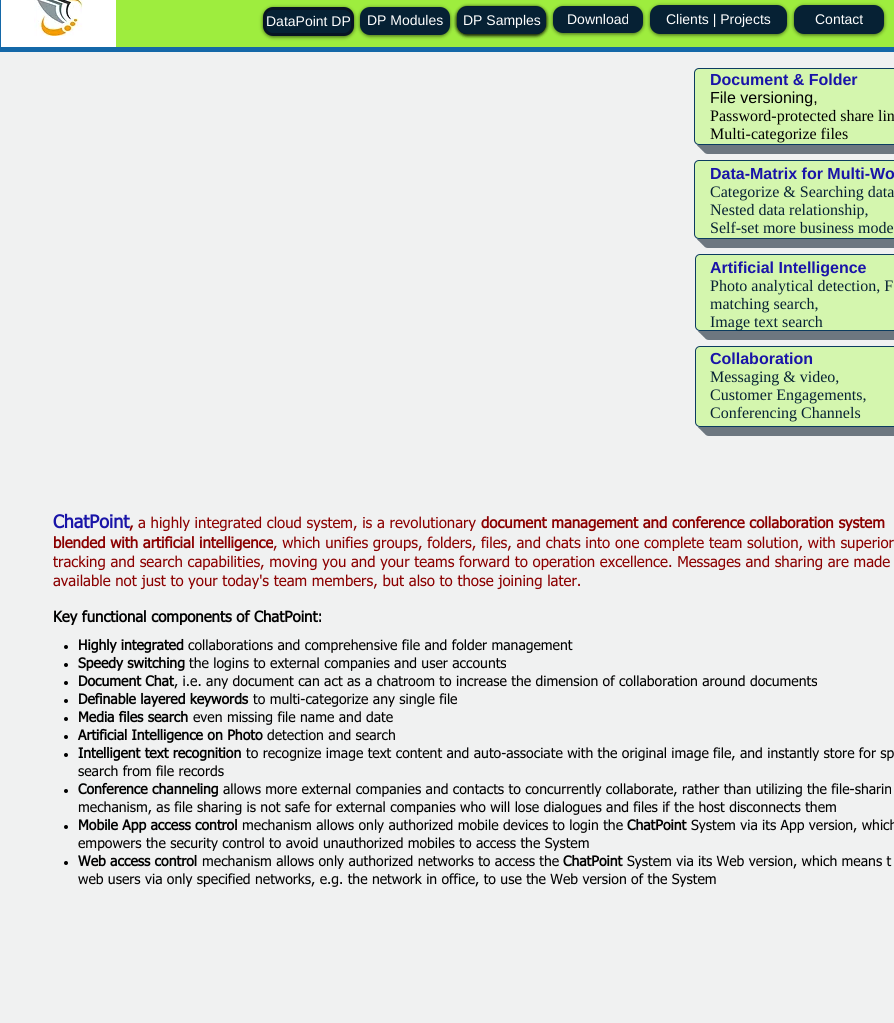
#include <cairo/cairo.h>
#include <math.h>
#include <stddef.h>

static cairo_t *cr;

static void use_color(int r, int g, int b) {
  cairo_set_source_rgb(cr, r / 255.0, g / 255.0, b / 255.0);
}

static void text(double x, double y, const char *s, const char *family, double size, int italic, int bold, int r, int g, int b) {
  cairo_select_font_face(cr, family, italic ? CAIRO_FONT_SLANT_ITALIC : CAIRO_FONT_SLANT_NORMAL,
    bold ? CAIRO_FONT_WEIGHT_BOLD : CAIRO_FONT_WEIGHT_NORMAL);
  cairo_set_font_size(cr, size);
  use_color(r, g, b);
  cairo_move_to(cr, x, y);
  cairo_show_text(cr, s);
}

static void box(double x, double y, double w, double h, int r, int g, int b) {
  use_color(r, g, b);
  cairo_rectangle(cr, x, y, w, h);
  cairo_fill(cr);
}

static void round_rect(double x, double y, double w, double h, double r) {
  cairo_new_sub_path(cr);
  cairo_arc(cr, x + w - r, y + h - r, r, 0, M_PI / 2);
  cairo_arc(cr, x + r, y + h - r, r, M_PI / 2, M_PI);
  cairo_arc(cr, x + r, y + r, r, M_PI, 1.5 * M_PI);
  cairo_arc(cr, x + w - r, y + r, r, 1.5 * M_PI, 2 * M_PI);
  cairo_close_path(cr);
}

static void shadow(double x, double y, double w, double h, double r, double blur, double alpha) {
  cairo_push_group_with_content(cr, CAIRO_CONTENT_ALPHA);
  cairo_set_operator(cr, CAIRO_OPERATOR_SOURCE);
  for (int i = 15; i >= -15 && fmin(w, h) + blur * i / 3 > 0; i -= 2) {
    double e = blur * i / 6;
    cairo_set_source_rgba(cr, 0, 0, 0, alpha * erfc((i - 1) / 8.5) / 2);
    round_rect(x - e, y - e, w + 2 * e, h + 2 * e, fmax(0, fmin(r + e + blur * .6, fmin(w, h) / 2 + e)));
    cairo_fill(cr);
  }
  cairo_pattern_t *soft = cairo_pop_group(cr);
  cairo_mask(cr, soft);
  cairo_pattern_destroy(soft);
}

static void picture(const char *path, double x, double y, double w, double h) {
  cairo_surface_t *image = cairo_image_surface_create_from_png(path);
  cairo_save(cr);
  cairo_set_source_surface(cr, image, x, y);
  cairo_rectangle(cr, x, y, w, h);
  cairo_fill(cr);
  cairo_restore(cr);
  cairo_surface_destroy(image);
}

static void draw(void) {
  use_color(20, 104, 168);
  cairo_paint(cr);
  box(1, 0, 115, 47, 255, 255, 255);
  picture("img_01.png", 34, 0, 49, 36);
  box(116, 0, 778, 47, 158, 237, 62);
  use_color(0, 0, 0);
  shadow(457, 7, 89, 28, 10, 2, 0.6);
  shadow(457, 8, 89, 27, 10, 2, 0.6);
  use_color(6, 33, 52);
  round_rect(457, 6, 89, 28, 10);
  cairo_fill(cr);
  use_color(0, 0, 0);
  shadow(263, 8, 91, 29, 10, 2, 0.6);
  use_color(6, 33, 52);
  round_rect(264.5, 8.5, 88, 26, 8.5);
  cairo_fill_preserve(cr);
  use_color(8, 20, 35);
  cairo_set_line_width(cr, 3);
  cairo_stroke(cr);
  use_color(0, 0, 0);
  shadow(360, 8, 90, 28, 10, 2, 0.6);
  use_color(6, 33, 52);
  round_rect(360, 7, 90, 28, 10);
  cairo_fill(cr);
  use_color(0, 0, 0);
  shadow(553, 7, 90, 27, 10, 2, 0.6);
  use_color(6, 33, 52);
  round_rect(553, 6, 90, 27, 10);
  cairo_fill(cr);
  use_color(0, 0, 0);
  shadow(650, 6, 137, 29, 10, 2, 0.6);
  use_color(6, 33, 52);
  round_rect(650, 5, 137, 29, 10);
  cairo_fill(cr);
  use_color(0, 0, 0);
  shadow(794, 6, 90, 29, 10, 2, 0.6);
  use_color(6, 33, 52);
  round_rect(794, 5, 90, 29, 10);
  cairo_fill(cr);
  use_color(0, 0, 0);
  shadow(457, 8, 89, 27, 10, 2, 0.6);
  use_color(6, 33, 52);
  round_rect(457, 7, 89, 27, 10);
  cairo_fill(cr);
  box(0, 52, 894, 971, 240, 241, 241);
  use_color(109, 119, 128);
  cairo_new_path(cr);
  cairo_move_to(cr, 703, 145);
  cairo_line_to(cr, 703, 149);
  cairo_curve_to(cr, 703, 152, 705, 154, 708, 154);
  cairo_line_to(cr, 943, 154);
  cairo_curve_to(cr, 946, 154, 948, 152, 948, 149);
  cairo_line_to(cr, 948, 82);
  cairo_curve_to(cr, 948, 79, 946, 77, 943, 77);
  cairo_line_to(cr, 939, 77);
  cairo_line_to(cr, 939, 140);
  cairo_curve_to(cr, 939, 143, 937, 145, 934, 145);
  cairo_close_path(cr);
  cairo_fill(cr);
  cairo_new_path(cr);
  cairo_move_to(cr, 701, 145);
  cairo_line_to(cr, 701, 147);
  cairo_curve_to(cr, 701, 150, 703, 152, 706, 152);
  cairo_line_to(cr, 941, 152);
  cairo_curve_to(cr, 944, 152, 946, 150, 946, 147);
  cairo_line_to(cr, 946, 80);
  cairo_curve_to(cr, 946, 77, 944, 75, 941, 75);
  cairo_line_to(cr, 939, 75);
  cairo_line_to(cr, 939, 140);
  cairo_curve_to(cr, 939, 143, 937, 145, 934, 145);
  cairo_close_path(cr);
  cairo_fill(cr);
  cairo_new_path(cr);
  cairo_move_to(cr, 699, 145);
  cairo_curve_to(cr, 699, 148, 701, 150, 704, 150);
  cairo_line_to(cr, 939, 150);
  cairo_curve_to(cr, 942, 150, 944, 148, 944, 145);
  cairo_line_to(cr, 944, 78);
  cairo_curve_to(cr, 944, 75, 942, 73, 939, 73);
  cairo_line_to(cr, 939, 140);
  cairo_curve_to(cr, 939, 143, 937, 145, 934, 145);
  cairo_close_path(cr);
  cairo_fill(cr);
  cairo_new_path(cr);
  cairo_move_to(cr, 697, 145);
  cairo_curve_to(cr, 698, 147, 700, 148, 702, 148);
  cairo_line_to(cr, 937, 148);
  cairo_curve_to(cr, 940, 148, 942, 146, 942, 143);
  cairo_line_to(cr, 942, 76);
  cairo_curve_to(cr, 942, 74, 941, 72, 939, 71);
  cairo_line_to(cr, 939, 129);
  cairo_curve_to(cr, 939, 132, 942, 145, 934, 145);
  cairo_close_path(cr);
  cairo_fill(cr);
  cairo_new_path(cr);
  cairo_move_to(cr, 696, 144);
  cairo_curve_to(cr, 697, 145, 698, 146, 700, 146);
  cairo_line_to(cr, 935, 146);
  cairo_curve_to(cr, 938, 146, 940, 144, 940, 141);
  cairo_line_to(cr, 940, 74);
  cairo_curve_to(cr, 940, 72, 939, 71, 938, 70);
  cairo_curve_to(cr, 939, 71, 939, 72, 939, 73);
  cairo_line_to(cr, 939, 140);
  cairo_curve_to(cr, 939, 143, 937, 145, 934, 145);
  cairo_line_to(cr, 699, 145);
  cairo_curve_to(cr, 698, 145, 697, 145, 696, 144);
  cairo_close_path(cr);
  cairo_fill(cr);
  cairo_set_source_rgba(cr, 0.745, 0.98, 0.459, 0.54);
  round_rect(694.5, 68.5, 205, 76, 4.5);
  cairo_fill_preserve(cr);
  use_color(12, 60, 96);
  cairo_set_line_width(cr, 1);
  cairo_stroke(cr);
  use_color(109, 119, 128);
  cairo_new_path(cr);
  cairo_move_to(cr, 703, 239);
  cairo_line_to(cr, 703, 243);
  cairo_curve_to(cr, 703, 246, 705, 248, 708, 248);
  cairo_line_to(cr, 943, 248);
  cairo_curve_to(cr, 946, 248, 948, 246, 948, 243);
  cairo_line_to(cr, 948, 174);
  cairo_curve_to(cr, 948, 171, 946, 169, 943, 169);
  cairo_line_to(cr, 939, 169);
  cairo_line_to(cr, 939, 234);
  cairo_curve_to(cr, 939, 237, 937, 239, 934, 239);
  cairo_close_path(cr);
  cairo_fill(cr);
  cairo_new_path(cr);
  cairo_move_to(cr, 701, 239);
  cairo_line_to(cr, 701, 241);
  cairo_curve_to(cr, 701, 244, 703, 246, 706, 246);
  cairo_line_to(cr, 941, 246);
  cairo_curve_to(cr, 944, 246, 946, 244, 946, 241);
  cairo_line_to(cr, 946, 172);
  cairo_curve_to(cr, 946, 169, 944, 167, 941, 167);
  cairo_line_to(cr, 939, 167);
  cairo_line_to(cr, 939, 234);
  cairo_curve_to(cr, 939, 237, 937, 239, 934, 239);
  cairo_close_path(cr);
  cairo_fill(cr);
  cairo_new_path(cr);
  cairo_move_to(cr, 699, 239);
  cairo_curve_to(cr, 699, 242, 701, 244, 704, 244);
  cairo_line_to(cr, 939, 244);
  cairo_curve_to(cr, 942, 244, 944, 242, 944, 239);
  cairo_line_to(cr, 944, 170);
  cairo_curve_to(cr, 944, 167, 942, 165, 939, 165);
  cairo_line_to(cr, 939, 234);
  cairo_curve_to(cr, 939, 237, 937, 239, 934, 239);
  cairo_close_path(cr);
  cairo_fill(cr);
  cairo_new_path(cr);
  cairo_move_to(cr, 697, 239);
  cairo_curve_to(cr, 698, 241, 700, 242, 702, 242);
  cairo_line_to(cr, 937, 242);
  cairo_curve_to(cr, 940, 242, 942, 240, 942, 237);
  cairo_line_to(cr, 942, 168);
  cairo_curve_to(cr, 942, 166, 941, 164, 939, 163);
  cairo_line_to(cr, 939, 222);
  cairo_curve_to(cr, 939, 226, 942, 239, 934, 239);
  cairo_close_path(cr);
  cairo_fill(cr);
  cairo_new_path(cr);
  cairo_move_to(cr, 696, 238);
  cairo_curve_to(cr, 697, 239, 698, 240, 700, 240);
  cairo_line_to(cr, 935, 240);
  cairo_curve_to(cr, 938, 240, 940, 238, 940, 235);
  cairo_line_to(cr, 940, 166);
  cairo_curve_to(cr, 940, 164, 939, 163, 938, 162);
  cairo_curve_to(cr, 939, 163, 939, 164, 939, 165);
  cairo_line_to(cr, 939, 234);
  cairo_curve_to(cr, 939, 237, 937, 239, 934, 239);
  cairo_line_to(cr, 699, 239);
  cairo_curve_to(cr, 698, 239, 697, 239, 696, 238);
  cairo_close_path(cr);
  cairo_fill(cr);
  cairo_set_source_rgba(cr, 0.745, 0.98, 0.459, 0.54);
  round_rect(694.5, 160.5, 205, 78, 4.5);
  cairo_fill_preserve(cr);
  use_color(12, 60, 96);
  cairo_stroke(cr);
  use_color(109, 119, 128);
  cairo_new_path(cr);
  cairo_move_to(cr, 704, 331);
  cairo_line_to(cr, 704, 335);
  cairo_curve_to(cr, 704, 338, 706, 340, 709, 340);
  cairo_line_to(cr, 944, 340);
  cairo_curve_to(cr, 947, 340, 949, 338, 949, 335);
  cairo_line_to(cr, 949, 268);
  cairo_curve_to(cr, 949, 265, 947, 263, 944, 263);
  cairo_line_to(cr, 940, 263);
  cairo_line_to(cr, 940, 326);
  cairo_curve_to(cr, 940, 329, 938, 331, 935, 331);
  cairo_close_path(cr);
  cairo_fill(cr);
  cairo_new_path(cr);
  cairo_move_to(cr, 702, 331);
  cairo_line_to(cr, 702, 333);
  cairo_curve_to(cr, 702, 336, 704, 338, 707, 338);
  cairo_line_to(cr, 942, 338);
  cairo_curve_to(cr, 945, 338, 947, 336, 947, 333);
  cairo_line_to(cr, 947, 266);
  cairo_curve_to(cr, 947, 263, 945, 261, 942, 261);
  cairo_line_to(cr, 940, 261);
  cairo_line_to(cr, 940, 326);
  cairo_curve_to(cr, 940, 329, 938, 331, 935, 331);
  cairo_close_path(cr);
  cairo_fill(cr);
  cairo_new_path(cr);
  cairo_move_to(cr, 700, 331);
  cairo_curve_to(cr, 700, 334, 702, 336, 705, 336);
  cairo_line_to(cr, 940, 336);
  cairo_curve_to(cr, 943, 336, 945, 334, 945, 331);
  cairo_line_to(cr, 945, 264);
  cairo_curve_to(cr, 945, 261, 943, 259, 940, 259);
  cairo_line_to(cr, 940, 326);
  cairo_curve_to(cr, 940, 329, 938, 331, 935, 331);
  cairo_close_path(cr);
  cairo_fill(cr);
  cairo_new_path(cr);
  cairo_move_to(cr, 698, 331);
  cairo_curve_to(cr, 699, 333, 701, 334, 703, 334);
  cairo_line_to(cr, 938, 334);
  cairo_curve_to(cr, 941, 334, 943, 332, 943, 329);
  cairo_line_to(cr, 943, 262);
  cairo_curve_to(cr, 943, 260, 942, 258, 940, 257);
  cairo_line_to(cr, 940, 315);
  cairo_curve_to(cr, 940, 318, 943, 331, 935, 331);
  cairo_close_path(cr);
  cairo_fill(cr);
  cairo_new_path(cr);
  cairo_move_to(cr, 697, 330);
  cairo_curve_to(cr, 698, 331, 699, 332, 701, 332);
  cairo_line_to(cr, 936, 332);
  cairo_curve_to(cr, 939, 332, 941, 330, 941, 327);
  cairo_line_to(cr, 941, 260);
  cairo_curve_to(cr, 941, 258, 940, 257, 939, 256);
  cairo_curve_to(cr, 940, 257, 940, 258, 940, 259);
  cairo_line_to(cr, 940, 326);
  cairo_curve_to(cr, 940, 329, 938, 331, 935, 331);
  cairo_line_to(cr, 700, 331);
  cairo_curve_to(cr, 699, 331, 698, 331, 697, 330);
  cairo_close_path(cr);
  cairo_fill(cr);
  cairo_set_source_rgba(cr, 0.745, 0.98, 0.459, 0.54);
  round_rect(695.5, 254.5, 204, 76, 4.5);
  cairo_fill_preserve(cr);
  use_color(12, 60, 96);
  cairo_stroke(cr);
  use_color(109, 119, 128);
  cairo_new_path(cr);
  cairo_move_to(cr, 704, 427);
  cairo_line_to(cr, 704, 431);
  cairo_curve_to(cr, 704, 434, 706, 436, 709, 436);
  cairo_line_to(cr, 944, 436);
  cairo_curve_to(cr, 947, 436, 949, 434, 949, 431);
  cairo_line_to(cr, 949, 360);
  cairo_curve_to(cr, 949, 357, 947, 355, 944, 355);
  cairo_line_to(cr, 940, 355);
  cairo_line_to(cr, 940, 422);
  cairo_curve_to(cr, 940, 425, 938, 427, 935, 427);
  cairo_close_path(cr);
  cairo_fill(cr);
  cairo_new_path(cr);
  cairo_move_to(cr, 702, 427);
  cairo_line_to(cr, 702, 429);
  cairo_curve_to(cr, 702, 432, 704, 434, 707, 434);
  cairo_line_to(cr, 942, 434);
  cairo_curve_to(cr, 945, 434, 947, 432, 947, 429);
  cairo_line_to(cr, 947, 358);
  cairo_curve_to(cr, 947, 355, 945, 353, 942, 353);
  cairo_line_to(cr, 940, 353);
  cairo_line_to(cr, 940, 422);
  cairo_curve_to(cr, 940, 425, 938, 427, 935, 427);
  cairo_close_path(cr);
  cairo_fill(cr);
  cairo_new_path(cr);
  cairo_move_to(cr, 700, 427);
  cairo_curve_to(cr, 700, 430, 702, 432, 705, 432);
  cairo_line_to(cr, 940, 432);
  cairo_curve_to(cr, 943, 432, 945, 430, 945, 427);
  cairo_line_to(cr, 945, 356);
  cairo_curve_to(cr, 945, 353, 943, 351, 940, 351);
  cairo_line_to(cr, 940, 422);
  cairo_curve_to(cr, 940, 425, 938, 427, 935, 427);
  cairo_close_path(cr);
  cairo_fill(cr);
  cairo_new_path(cr);
  cairo_move_to(cr, 698, 427);
  cairo_curve_to(cr, 699, 429, 701, 430, 703, 430);
  cairo_line_to(cr, 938, 430);
  cairo_curve_to(cr, 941, 430, 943, 428, 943, 425);
  cairo_line_to(cr, 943, 354);
  cairo_curve_to(cr, 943, 352, 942, 350, 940, 349);
  cairo_line_to(cr, 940, 410);
  cairo_curve_to(cr, 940, 413, 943, 427, 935, 427);
  cairo_close_path(cr);
  cairo_fill(cr);
  cairo_new_path(cr);
  cairo_move_to(cr, 697, 426);
  cairo_curve_to(cr, 698, 427, 699, 428, 701, 428);
  cairo_line_to(cr, 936, 428);
  cairo_curve_to(cr, 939, 428, 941, 426, 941, 423);
  cairo_line_to(cr, 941, 352);
  cairo_curve_to(cr, 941, 350, 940, 349, 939, 348);
  cairo_curve_to(cr, 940, 349, 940, 350, 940, 351);
  cairo_line_to(cr, 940, 422);
  cairo_curve_to(cr, 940, 425, 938, 427, 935, 427);
  cairo_line_to(cr, 700, 427);
  cairo_curve_to(cr, 699, 427, 698, 427, 697, 426);
  cairo_close_path(cr);
  cairo_fill(cr);
  cairo_set_source_rgba(cr, 0.745, 0.98, 0.459, 0.54);
  round_rect(695.5, 346.5, 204, 80, 4.5);
  cairo_fill_preserve(cr);
  use_color(12, 60, 96);
  cairo_stroke(cr);
  use_color(0, 0, 0);
  cairo_arc(cr, 66, 647, 2, 0, 2 * M_PI);
  cairo_fill(cr);
  cairo_arc(cr, 66, 665, 2, 0, 2 * M_PI);
  cairo_fill(cr);
  cairo_arc(cr, 66, 683, 2, 0, 2 * M_PI);
  cairo_fill(cr);
  cairo_arc(cr, 66, 701, 2, 0, 2 * M_PI);
  cairo_fill(cr);
  cairo_arc(cr, 66, 719, 2, 0, 2 * M_PI);
  cairo_fill(cr);
  cairo_arc(cr, 66, 737, 2, 0, 2 * M_PI);
  cairo_fill(cr);
  cairo_arc(cr, 66, 755, 2, 0, 2 * M_PI);
  cairo_fill(cr);
  cairo_arc(cr, 66, 791, 2, 0, 2 * M_PI);
  cairo_fill(cr);
  cairo_arc(cr, 66, 827, 2, 0, 2 * M_PI);
  cairo_fill(cr);
  cairo_arc(cr, 66, 863, 2, 0, 2 * M_PI);
  cairo_fill(cr);
  text(266, 26, "DataPoint DP", "Liberation Sans", 14, 0, 0, 255, 255, 255);
  text(367, 25, "DP Modules", "Liberation Sans", 14, 0, 0, 255, 255, 255);
  text(567, 24, "Download", "Liberation Sans", 14, 0, 0, 255, 255, 255);
  text(666, 24, "Clients | Projects", "Liberation Sans", 14, 0, 0, 255, 255, 255);
  text(815, 24, "Contact", "Liberation Sans", 14, 0, 0, 255, 255, 255);
  text(463, 25, "DP Samples", "Liberation Sans", 14, 0, 0, 255, 255, 255);
  text(710, 85, "Document & Folder", "Liberation Sans", 16, 0, 1, 25, 20, 168);
  text(710, 103, "File versioning,", "Liberation Sans", 16, 0, 0, 0, 0, 0);
  text(710, 121, "Password-protected share lin", "Liberation Serif", 16, 0, 0, 0, 0, 0);
  text(710, 139, "Multi-categorize files", "Liberation Serif", 16, 0, 0, 0, 0, 0);
  text(710, 179, "Data-Matrix for Multi-Wo", "Liberation Sans", 16, 0, 1, 25, 20, 168);
  text(710, 197, "Categorize & Searching data", "Liberation Serif", 16, 0, 0, 6, 33, 52);
  text(710, 215, "Nested data relationship,", "Liberation Serif", 16, 0, 0, 6, 33, 52);
  text(710, 233, "Self-set more business mode", "Liberation Serif", 16, 0, 0, 6, 33, 52);
  text(710, 273, "Artificial Intelligence", "Liberation Sans", 16, 0, 1, 25, 20, 168);
  text(710, 291, "Photo analytical detection, F", "Liberation Serif", 16, 0, 0, 6, 33, 52);
  text(710, 309, "matching search,", "Liberation Serif", 16, 0, 0, 6, 33, 52);
  text(710, 327, "Image text search", "Liberation Serif", 16, 0, 0, 6, 33, 52);
  text(710, 364, "Collaboration", "Liberation Sans", 16, 0, 1, 25, 20, 168);
  text(710, 382, "Messaging & video,", "Liberation Serif", 16, 0, 0, 6, 33, 52);
  text(710, 400, "Customer Engagements,", "Liberation Serif", 16, 0, 0, 6, 33, 52);
  text(710, 418, "Conferencing Channels", "Liberation Serif", 16, 0, 0, 6, 33, 52);
  text(53, 528, "ChatPoint", "tahoma", 18, 0, 1, 25, 20, 168);
  text(129, 528, ",", "tahoma", 15, 0, 1, 139, 0, 0);
  text(138, 528, "a highly integrated cloud system, is a revolutionary", "tahoma", 15, 0, 0, 139, 0, 0);
  text(481, 528, "document management and conference collaboration system", "tahoma", 15, 0, 1, 139, 0, 0);
  text(53, 548, "blended with artificial intelligence", "tahoma", 15, 0, 1, 139, 0, 0);
  text(273, 548, ", which unifies groups, folders, files, and chats into one complete team solution, with superior", "tahoma", 15, 0, 0, 139, 0, 0);
  text(53, 567, "tracking and search capabilities, moving you and your teams forward to operation excellence. Messages and sharing are made", "tahoma", 15, 0, 0, 139, 0, 0);
  text(53, 586, "available not just to your today's team members, but also to those joining later.", "tahoma", 15, 0, 0, 139, 0, 0);
  text(53, 622, "Key functional components of ChatPoint:", "tahoma", 15, 0, 1, 0, 0, 0);
  text(78, 650, "Highly integrated", "tahoma", 14, 0, 1, 0, 0, 0);
  text(188, 650, "collaborations and comprehensive file and folder management", "tahoma", 14, 0, 0, 0, 0, 0);
  text(78, 668, "Speedy switching", "tahoma", 14, 0, 1, 0, 0, 0);
  text(189, 668, "the logins to external companies and user accounts", "tahoma", 14, 0, 0, 0, 0, 0);
  text(78, 686, "Document Chat", "tahoma", 14, 0, 1, 0, 0, 0);
  text(174, 686, ", i.e. any document can act as a chatroom to increase the dimension of collaboration around documents", "tahoma", 14, 0, 0, 0, 0, 0);
  text(78, 704, "Definable layered keywords", "tahoma", 14, 0, 1, 0, 0, 0);
  text(253, 704, "to multi-categorize any single file", "tahoma", 14, 0, 0, 0, 0, 0);
  text(78, 722, "Media files search", "tahoma", 14, 0, 1, 0, 0, 0);
  text(193, 722, "even missing file name and date", "tahoma", 14, 0, 0, 0, 0, 0);
  text(78, 740, "Artificial Intelligence on Photo", "tahoma", 14, 0, 1, 0, 0, 0);
  text(267, 740, "detection and search", "tahoma", 14, 0, 0, 0, 0, 0);
  text(78, 758, "Intelligent text recognition", "tahoma", 14, 0, 1, 0, 0, 0);
  text(246, 758, "to recognize image text content and auto-associate with the original image file, and instantly store for sp", "tahoma", 14, 0, 0, 0, 0, 0);
  text(78, 776, "search from file records", "tahoma", 14, 0, 0, 0, 0, 0);
  text(78, 794, "Conference channeling", "tahoma", 14, 0, 1, 0, 0, 0);
  text(223, 794, "allows more external companies and contacts to concurrently collaborate, rather than utilizing the file-sharin", "tahoma", 14, 0, 0, 0, 0, 0);
  text(78, 812, "mechanism, as file sharing is not safe for external companies who will lose dialogues and files if the host disconnects them", "tahoma", 14, 0, 0, 0, 0, 0);
  text(78, 830, "Mobile App access control", "tahoma", 14, 0, 1, 0, 0, 0);
  text(242, 830, "mechanism allows only authorized mobile devices to login the", "tahoma", 14, 0, 0, 0, 0, 0);
  text(627, 830, "ChatPoint", "tahoma", 14, 0, 1, 0, 0, 0);
  text(691, 830, "System via its App version, which", "tahoma", 14, 0, 0, 0, 0, 0);
  text(78, 848, "empowers the security control to avoid unauthorized mobiles to access the System", "tahoma", 14, 0, 0, 0, 0, 0);
  text(78, 866, "Web access control", "tahoma", 14, 0, 1, 0, 0, 0);
  text(202, 866, "mechanism allows only authorized networks to access the", "tahoma", 14, 0, 0, 0, 0, 0);
  text(563, 866, "ChatPoint", "tahoma", 14, 0, 1, 0, 0, 0);
  text(627, 866, "System via its Web version, which means t", "tahoma", 14, 0, 0, 0, 0, 0);
  text(78, 884, "web users via only specified networks, e.g. the network in office, to use the Web version of the System", "tahoma", 14, 0, 0, 0, 0, 0);
}

int main(void) {
  cairo_surface_t *surface = cairo_image_surface_create(CAIRO_FORMAT_RGB24, 894, 1023);
  cr = cairo_create(surface);
  cairo_font_options_t *options = cairo_font_options_create();
  cairo_font_options_set_hint_metrics(options, CAIRO_HINT_METRICS_OFF);
  cairo_font_options_set_hint_style(options, CAIRO_HINT_STYLE_NONE);
  cairo_set_font_options(cr, options);
  cairo_set_miter_limit(cr, 4);
  draw();
  cairo_surface_write_to_png(surface, "out.png");
  cairo_font_options_destroy(options);
  cairo_destroy(cr);
  cairo_surface_destroy(surface);
  return 0;
}
